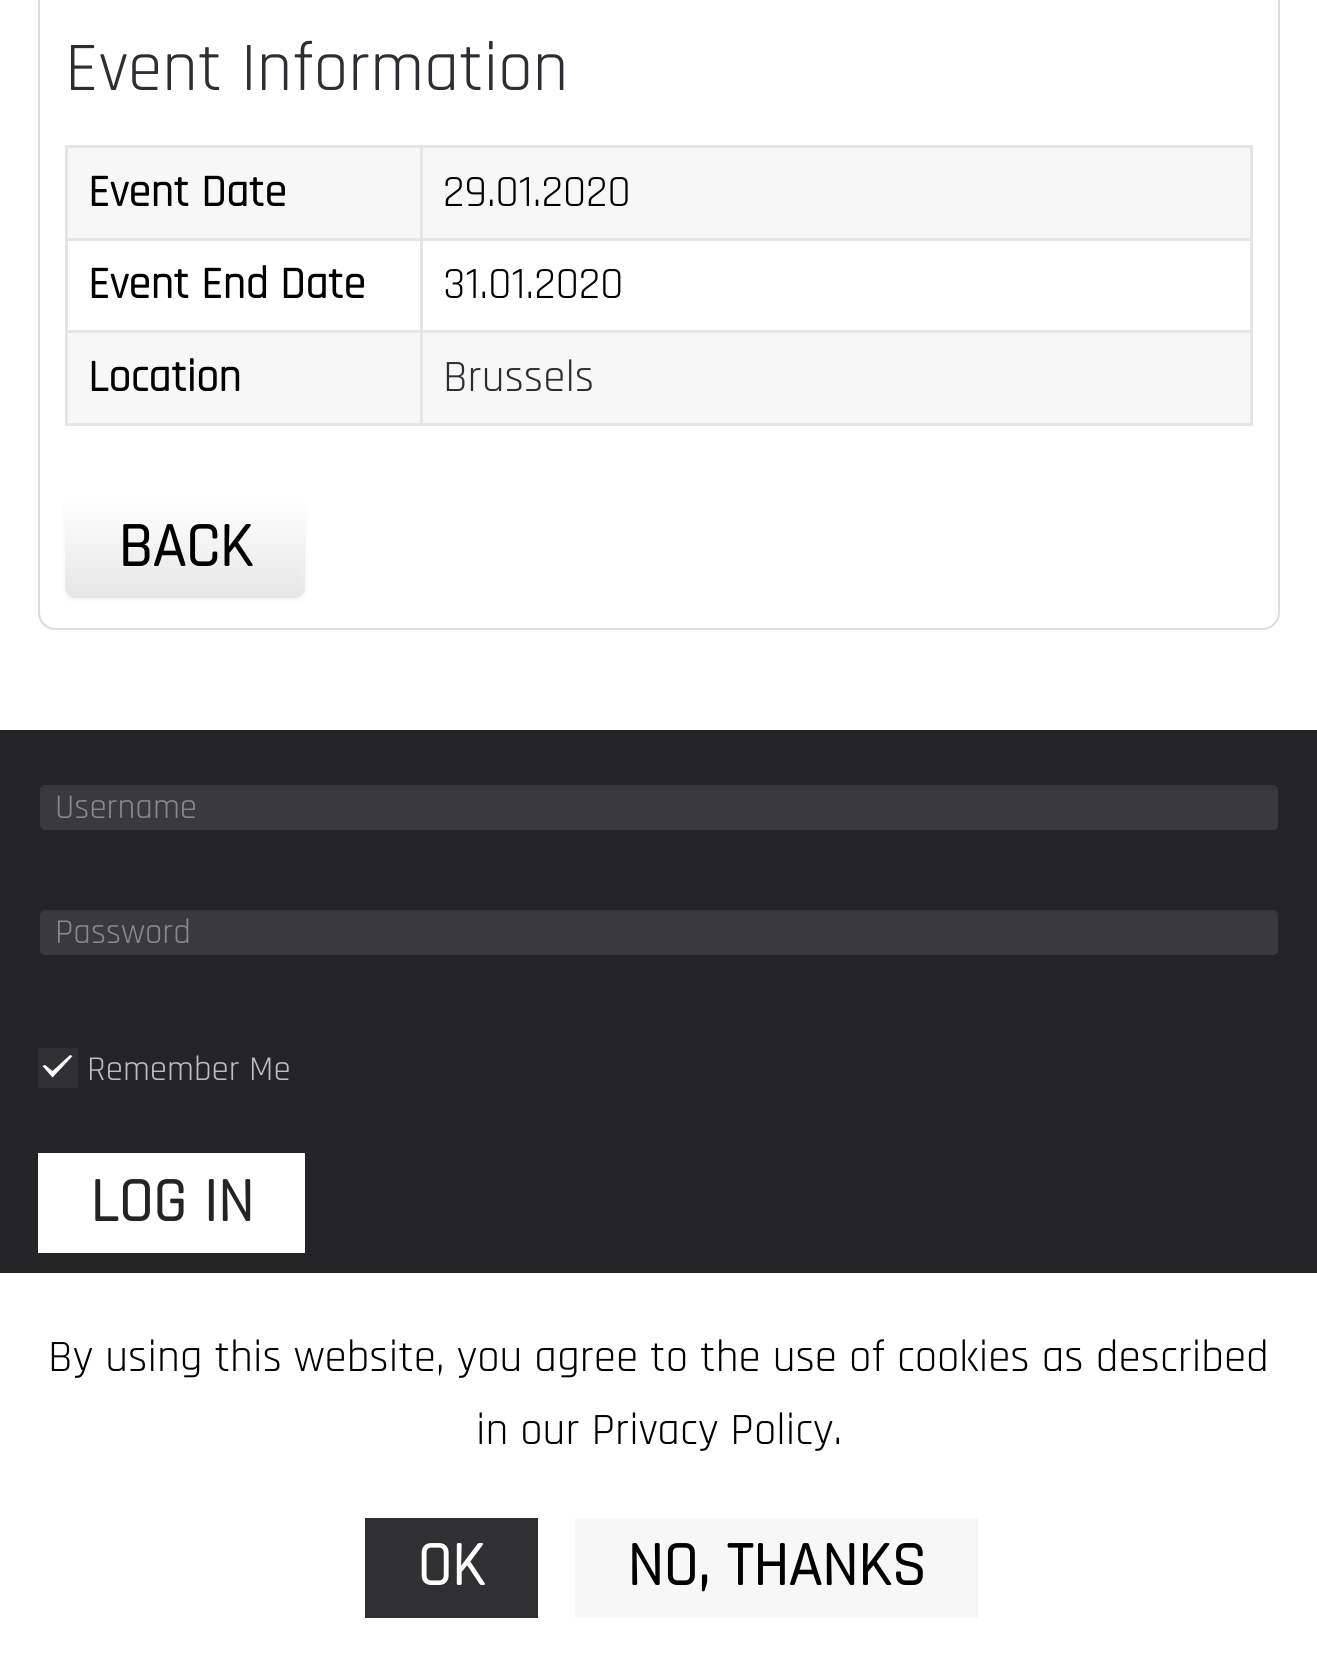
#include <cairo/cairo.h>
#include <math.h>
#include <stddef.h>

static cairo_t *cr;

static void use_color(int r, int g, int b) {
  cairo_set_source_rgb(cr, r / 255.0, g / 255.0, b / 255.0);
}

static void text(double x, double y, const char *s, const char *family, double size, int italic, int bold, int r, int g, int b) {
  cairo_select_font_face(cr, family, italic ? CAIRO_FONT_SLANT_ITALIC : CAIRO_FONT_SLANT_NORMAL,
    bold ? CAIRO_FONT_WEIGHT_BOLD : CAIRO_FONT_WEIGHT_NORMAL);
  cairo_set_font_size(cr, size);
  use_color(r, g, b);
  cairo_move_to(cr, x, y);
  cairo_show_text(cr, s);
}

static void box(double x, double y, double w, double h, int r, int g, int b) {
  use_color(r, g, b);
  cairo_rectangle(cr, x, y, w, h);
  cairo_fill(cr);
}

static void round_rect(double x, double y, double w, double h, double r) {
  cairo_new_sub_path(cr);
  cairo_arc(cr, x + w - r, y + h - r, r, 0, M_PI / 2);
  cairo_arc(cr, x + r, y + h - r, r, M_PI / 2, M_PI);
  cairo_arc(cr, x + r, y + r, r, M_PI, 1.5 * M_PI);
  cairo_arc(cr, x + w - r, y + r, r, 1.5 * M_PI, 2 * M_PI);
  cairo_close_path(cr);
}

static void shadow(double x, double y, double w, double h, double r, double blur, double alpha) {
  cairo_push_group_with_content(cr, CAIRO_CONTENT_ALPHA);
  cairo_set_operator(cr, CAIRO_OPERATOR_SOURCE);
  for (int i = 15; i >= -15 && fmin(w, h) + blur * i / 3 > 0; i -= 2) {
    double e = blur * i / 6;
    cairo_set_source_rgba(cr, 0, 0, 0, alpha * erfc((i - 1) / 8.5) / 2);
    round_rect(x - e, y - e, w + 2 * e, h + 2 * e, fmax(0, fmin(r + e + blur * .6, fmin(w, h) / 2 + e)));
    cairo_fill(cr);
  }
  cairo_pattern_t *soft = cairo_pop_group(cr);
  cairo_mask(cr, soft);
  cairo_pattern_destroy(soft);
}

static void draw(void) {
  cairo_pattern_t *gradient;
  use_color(255, 255, 255);
  cairo_paint(cr);
  use_color(219, 222, 225);
  cairo_set_fill_rule(cr, CAIRO_FILL_RULE_EVEN_ODD);
  cairo_new_path(cr);
  cairo_move_to(cr, 38, -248);
  cairo_line_to(cr, 1280, -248);
  cairo_line_to(cr, 1280, 612);
  cairo_curve_to(cr, 1280, 622, 1272, 630, 1262, 630);
  cairo_line_to(cr, 55, 630);
  cairo_curve_to(cr, 45, 630, 38, 622, 38, 612);
  cairo_close_path(cr);
  cairo_move_to(cr, 40, -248);
  cairo_line_to(cr, 1278, -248);
  cairo_line_to(cr, 1278, 612);
  cairo_curve_to(cr, 1278, 621, 1271, 628, 1262, 628);
  cairo_line_to(cr, 55, 628);
  cairo_curve_to(cr, 47, 628, 40, 621, 40, 612);
  cairo_close_path(cr);
  cairo_fill(cr);
  box(65, 145, 1188, 3, 229, 229, 231);
  box(1250, 145, 3, 280, 229, 229, 231);
  box(65, 423, 1188, 3, 229, 229, 231);
  box(68, 148, 352, 90, 247, 247, 247);
  box(423, 148, 827, 90, 247, 247, 247);
  box(420, 238, 833, 3, 229, 229, 231);
  box(420, 330, 833, 3, 229, 229, 231);
  box(420, 330, 3, 95, 229, 229, 231);
  box(65, 330, 358, 3, 229, 229, 231);
  box(420, 238, 3, 95, 229, 229, 231);
  box(65, 238, 358, 3, 229, 229, 231);
  box(420, 145, 3, 95, 229, 229, 231);
  box(65, 330, 3, 95, 229, 229, 231);
  box(65, 145, 3, 188, 229, 229, 231);
  box(68, 333, 352, 90, 247, 247, 247);
  box(423, 333, 827, 90, 247, 247, 247);
  use_color(0, 0, 0);
  shadow(65, 500, 240, 100, 10, 2.5, 0.05);
  gradient = cairo_pattern_create_linear(185, 498, 185, 598);
  cairo_pattern_add_color_stop_rgba(gradient, 0, 1, 1, 1, 1);
  cairo_pattern_add_color_stop_rgba(gradient, 1, 0.902, 0.902, 0.902, 1);
  cairo_set_source(cr, gradient);
  cairo_pattern_destroy(gradient);
  round_rect(65, 498, 240, 100, 10);
  cairo_fill(cr);
  cairo_set_source_rgba(cr, 1, 1, 1, 0.2);
  cairo_set_fill_rule(cr, CAIRO_FILL_RULE_WINDING);
  cairo_new_path(cr);
  cairo_move_to(cr, 75, 502);
  cairo_line_to(cr, 295, 502);
  cairo_curve_to(cr, 305, 502, 302, 519, 302, 523);
  cairo_line_to(cr, 302, 591);
  cairo_curve_to(cr, 303, 590, 303, 588, 303, 587);
  cairo_line_to(cr, 303, 508);
  cairo_curve_to(cr, 303, 504, 299, 500, 295, 500);
  cairo_line_to(cr, 76, 500);
  cairo_curve_to(cr, 72, 500, 68, 504, 68, 508);
  cairo_line_to(cr, 68, 510);
  cairo_curve_to(cr, 68, 506, 71, 502, 75, 502);
  cairo_close_path(cr);
  cairo_fill(cr);
  box(0, 730, 1317, 543, 36, 36, 39);
  use_color(58, 58, 61);
  round_rect(40, 785, 1238, 45, 5);
  cairo_fill(cr);
  cairo_set_source_rgba(cr, 0, 0, 0, 0.07);
  cairo_new_path(cr);
  cairo_move_to(cr, 45, 788);
  cairo_line_to(cr, 1272, 788);
  cairo_curve_to(cr, 1275, 788, 1278, 790, 1278, 792);
  cairo_line_to(cr, 1278, 790);
  cairo_curve_to(cr, 1278, 787, 1276, 785, 1273, 785);
  cairo_line_to(cr, 45, 785);
  cairo_curve_to(cr, 42, 785, 40, 787, 40, 790);
  cairo_line_to(cr, 40, 792);
  cairo_curve_to(cr, 40, 790, 42, 788, 45, 788);
  cairo_close_path(cr);
  cairo_fill(cr);
  use_color(58, 58, 61);
  round_rect(40, 910, 1238, 45, 5);
  cairo_fill(cr);
  cairo_set_source_rgba(cr, 0, 0, 0, 0.07);
  cairo_new_path(cr);
  cairo_move_to(cr, 45, 912);
  cairo_line_to(cr, 1272, 912);
  cairo_curve_to(cr, 1275, 912, 1278, 915, 1278, 918);
  cairo_line_to(cr, 1278, 915);
  cairo_curve_to(cr, 1278, 912, 1276, 910, 1273, 910);
  cairo_line_to(cr, 45, 910);
  cairo_curve_to(cr, 42, 910, 40, 912, 40, 915);
  cairo_line_to(cr, 40, 918);
  cairo_curve_to(cr, 40, 915, 42, 912, 45, 912);
  cairo_close_path(cr);
  cairo_fill(cr);
  box(38, 1048, 40, 40, 48, 48, 51);
  use_color(255, 255, 255);
  cairo_new_path(cr);
  cairo_move_to(cr, 70, 1055);
  cairo_line_to(cr, 52.5, 1071);
  cairo_line_to(cr, 45, 1065);
  cairo_line_to(cr, 42.5, 1066);
  cairo_line_to(cr, 52.5, 1077.5);
  cairo_line_to(cr, 72.5, 1056);
  cairo_close_path(cr);
  cairo_fill(cr);
  box(38, 1153, 267, 100, 255, 255, 255);
  box(365, 1518, 173, 100, 48, 48, 51);
  box(575, 1518, 403, 100, 247, 247, 247);
  text(65, 90, "Event Information", "Rajdhani", 70, 0, 0, 45, 46, 51);
  text(88, 206, "Event Date", "Rajdhani", 45, 0, 1, 0, 0, 0);
  text(443, 206, "29.01.2020", "Rajdhani", 45, 0, 0, 0, 0, 0);
  text(88, 298, "Event End Date", "Rajdhani", 45, 0, 1, 0, 0, 0);
  text(443, 298, "31.01.2020", "Rajdhani", 45, 0, 0, 0, 0, 0);
  text(88, 391, "Location", "Rajdhani", 45, 0, 1, 0, 0, 0);
  text(443, 391, "Brussels", "Rajdhani", 45, 0, 0, 45, 46, 51);
  text(118, 566, "BACK", "Rajdhani", 62.5, 0, 1, 0, 0, 0);
  text(55, 818, "Username", "Rajdhani", 35, 0, 0, 137, 137, 139);
  text(55, 943, "Password", "Rajdhani", 35, 0, 0, 137, 137, 139);
  text(87, 1080, "Remember Me", "Rajdhani", 35, 0, 0, 189, 189, 190);
  text(90, 1221, "LOG IN", "Rajdhani", 62.5, 0, 1, 36, 36, 39);
  text(48, 1371, "By using this website, you agree to the use of cookies as described", "Rajdhani", 45, 0, 0, 0, 0, 0);
  text(476, 1444, "in our Privacy Policy.", "Rajdhani", 45, 0, 0, 0, 0, 0);
  text(417, 1585, "OK", "Rajdhani", 62.5, 0, 1, 255, 255, 255);
  text(627, 1585, "NO, THANKS", "Rajdhani", 62.5, 0, 1, 0, 0, 0);
}

int main(void) {
  cairo_surface_t *surface = cairo_image_surface_create(CAIRO_FORMAT_RGB24, 1317, 1666);
  cr = cairo_create(surface);
  cairo_font_options_t *options = cairo_font_options_create();
  cairo_font_options_set_hint_metrics(options, CAIRO_HINT_METRICS_OFF);
  cairo_font_options_set_hint_style(options, CAIRO_HINT_STYLE_NONE);
  cairo_set_font_options(cr, options);
  cairo_set_miter_limit(cr, 4);
  draw();
  cairo_surface_write_to_png(surface, "out.png");
  cairo_font_options_destroy(options);
  cairo_destroy(cr);
  cairo_surface_destroy(surface);
  return 0;
}
